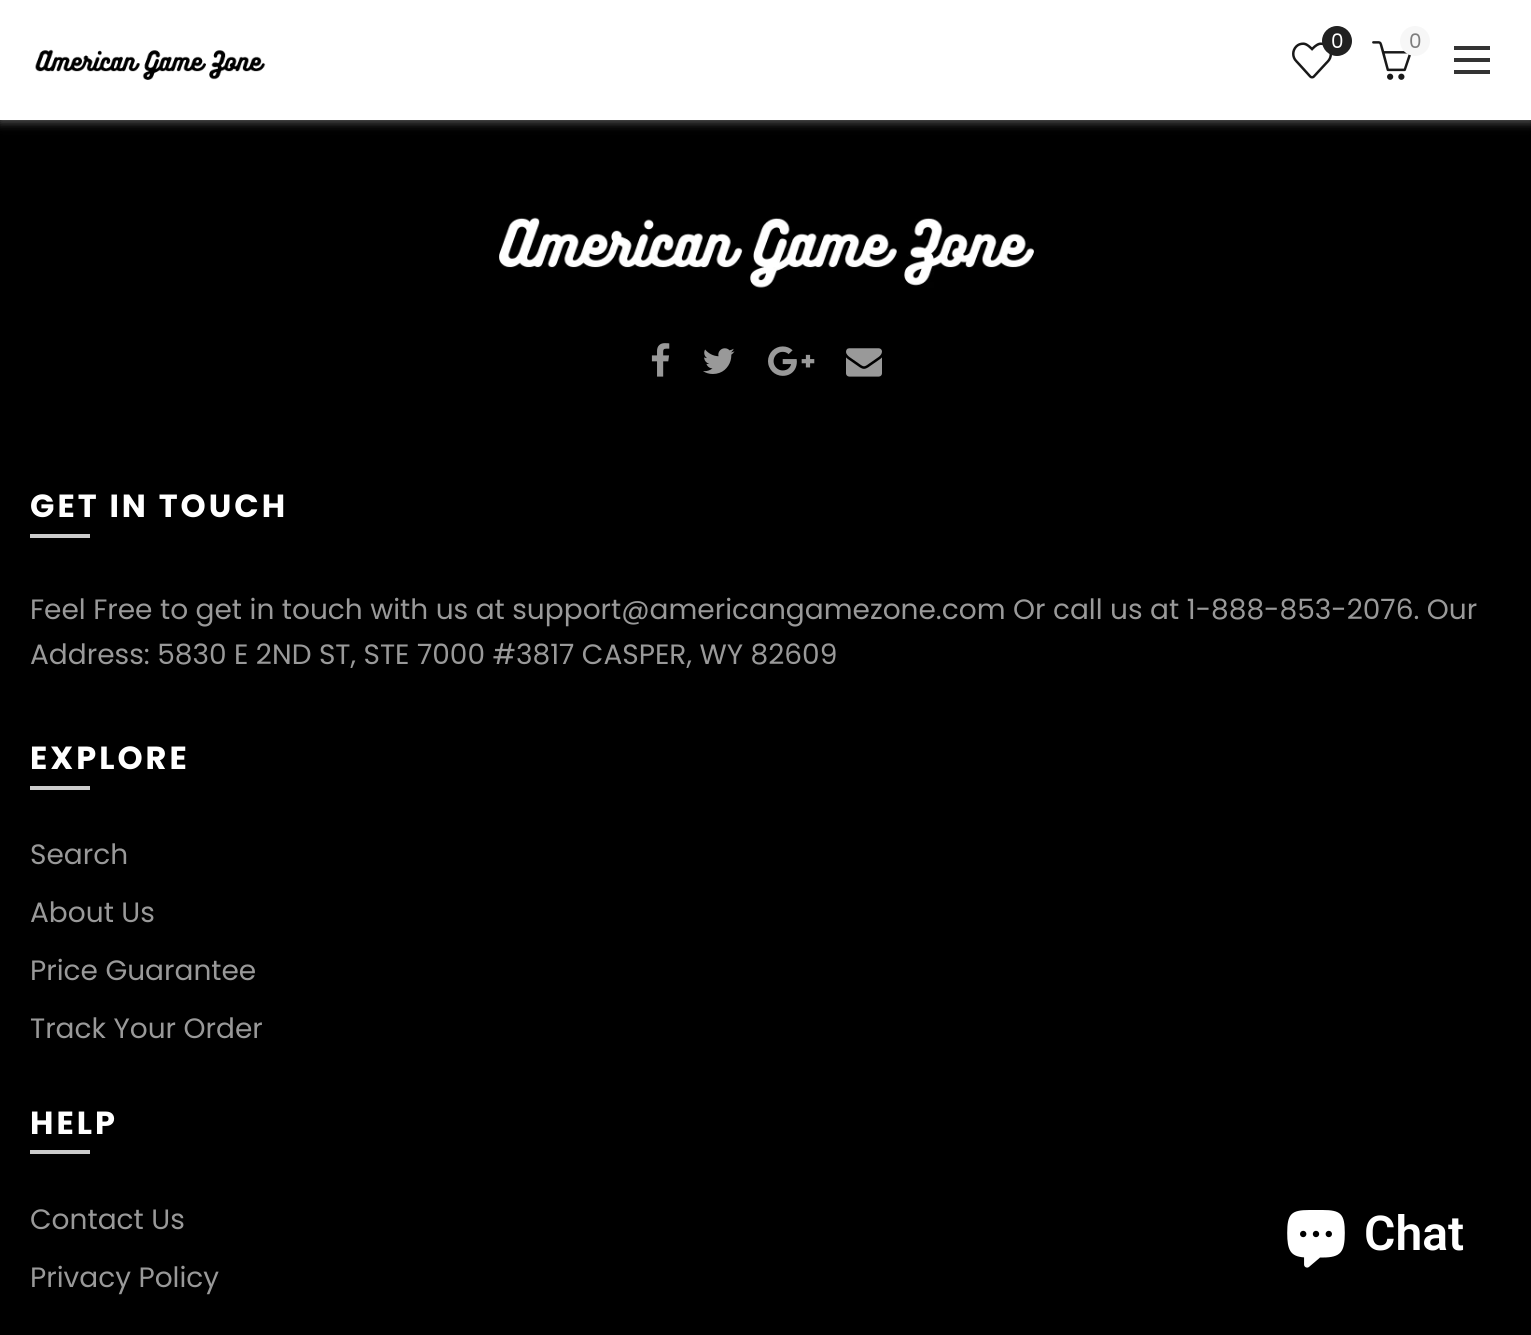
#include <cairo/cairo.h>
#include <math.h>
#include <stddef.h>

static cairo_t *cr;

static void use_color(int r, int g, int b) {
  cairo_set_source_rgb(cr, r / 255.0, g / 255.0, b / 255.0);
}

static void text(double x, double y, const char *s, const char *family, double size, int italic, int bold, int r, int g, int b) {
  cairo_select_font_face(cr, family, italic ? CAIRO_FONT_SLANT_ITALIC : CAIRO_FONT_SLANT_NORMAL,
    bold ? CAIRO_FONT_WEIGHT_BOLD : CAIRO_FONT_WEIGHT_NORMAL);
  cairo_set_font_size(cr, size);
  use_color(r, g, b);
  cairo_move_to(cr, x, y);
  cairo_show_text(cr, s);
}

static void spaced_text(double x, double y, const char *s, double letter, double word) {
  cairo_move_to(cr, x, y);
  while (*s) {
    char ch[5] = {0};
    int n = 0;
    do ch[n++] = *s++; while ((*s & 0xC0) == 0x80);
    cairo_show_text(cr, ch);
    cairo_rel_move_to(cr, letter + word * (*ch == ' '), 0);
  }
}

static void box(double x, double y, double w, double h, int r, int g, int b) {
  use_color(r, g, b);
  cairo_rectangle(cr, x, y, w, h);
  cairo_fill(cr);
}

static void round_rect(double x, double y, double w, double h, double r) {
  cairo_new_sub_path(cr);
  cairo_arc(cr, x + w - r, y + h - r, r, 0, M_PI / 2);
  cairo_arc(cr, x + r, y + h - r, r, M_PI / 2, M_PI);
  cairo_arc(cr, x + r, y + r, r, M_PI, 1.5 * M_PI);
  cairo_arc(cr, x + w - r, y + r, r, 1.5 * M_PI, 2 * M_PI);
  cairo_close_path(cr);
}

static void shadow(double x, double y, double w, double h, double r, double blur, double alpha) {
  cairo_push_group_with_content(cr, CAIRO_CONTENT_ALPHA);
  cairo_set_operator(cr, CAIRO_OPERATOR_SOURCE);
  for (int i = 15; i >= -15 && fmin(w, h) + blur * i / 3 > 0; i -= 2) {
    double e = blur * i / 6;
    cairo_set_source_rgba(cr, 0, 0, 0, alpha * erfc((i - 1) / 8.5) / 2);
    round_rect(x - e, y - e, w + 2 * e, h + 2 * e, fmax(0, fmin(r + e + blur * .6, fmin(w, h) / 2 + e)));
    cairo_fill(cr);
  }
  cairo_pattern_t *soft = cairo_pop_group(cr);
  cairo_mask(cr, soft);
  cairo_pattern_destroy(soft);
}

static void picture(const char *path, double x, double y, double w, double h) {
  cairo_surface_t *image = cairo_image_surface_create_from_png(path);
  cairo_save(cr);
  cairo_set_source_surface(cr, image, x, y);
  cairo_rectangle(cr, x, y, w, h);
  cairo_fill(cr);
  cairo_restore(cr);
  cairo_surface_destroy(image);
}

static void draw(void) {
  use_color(0, 0, 0);
  cairo_paint(cr);
  use_color(190, 190, 190);
  shadow(0, 2, 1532, 120, 0, 5, 0.5);
  box(0, 0, 1531, 120, 255, 255, 255);
  picture("img_01.png", 1292, 42, 40, 37);
  use_color(33, 33, 33);
  cairo_arc(cr, 1337, 41, 15, 0, 2 * M_PI);
  cairo_fill(cr);
  picture("img_02.png", 1372, 41, 39, 39);
  use_color(247, 247, 247);
  cairo_arc(cr, 1415, 41, 15, 0, 2 * M_PI);
  cairo_fill(cr);
  box(1454, 58, 36, 4, 51, 51, 51);
  box(1454, 46, 36, 4, 51, 51, 51);
  box(1454, 70, 36, 4, 51, 51, 51);
  picture("img_03.png", 35, 49, 231, 31);
  picture("img_04.png", 499, 217, 535, 71);
  picture("img_05.png", 651, 343, 19, 34);
  picture("img_06.png", 703, 348, 32, 26);
  picture("img_07.png", 768, 346, 47, 30);
  picture("img_08.png", 846, 348, 36, 29);
  box(30, 534, 60, 4, 204, 204, 204);
  box(30, 786, 60, 4, 204, 204, 204);
  box(30, 1150, 60, 4, 204, 204, 204);
  picture("img_09.png", 1287, 1210, 58, 58);
  text(1331, 48, "0", "Poppins", 20, 0, 0, 255, 255, 255);
  text(1409, 48, "0", "Poppins", 20, 0, 0, 126, 126, 126);
  cairo_select_font_face(cr, "Poppins", CAIRO_FONT_SLANT_NORMAL, CAIRO_FONT_WEIGHT_BOLD);
  cairo_set_font_size(cr, 32);
  use_color(255, 255, 255);
  spaced_text(30, 517, "GET IN TOUCH", 3, 0);
  text(30, 619, "Feel Free to get in touch with us at support@americangamezone.com Or call us at 1-888-853-2076. Our", "Poppins", 28, 0, 0, 153, 153, 153);
  text(30, 664, "Address: 5830 E 2ND ST, STE 7000 #3817 CASPER, WY 82609", "Poppins", 28, 0, 0, 153, 153, 153);
  cairo_select_font_face(cr, "Poppins", CAIRO_FONT_SLANT_NORMAL, CAIRO_FONT_WEIGHT_BOLD);
  cairo_set_font_size(cr, 32);
  use_color(255, 255, 255);
  spaced_text(30, 769, "EXPLORE", 3, 0);
  text(30, 864, "Search", "Poppins", 28, 0, 0, 153, 153, 153);
  text(30, 922, "About Us", "Poppins", 28, 0, 0, 153, 153, 153);
  text(30, 980, "Price Guarantee", "Poppins", 28, 0, 0, 153, 153, 153);
  text(30, 1038, "Track Your Order", "Poppins", 28, 0, 0, 153, 153, 153);
  cairo_select_font_face(cr, "Poppins", CAIRO_FONT_SLANT_NORMAL, CAIRO_FONT_WEIGHT_BOLD);
  cairo_set_font_size(cr, 32);
  use_color(255, 255, 255);
  spaced_text(30, 1134, "HELP", 3, 0);
  text(30, 1229, "Contact Us", "Poppins", 28, 0, 0, 153, 153, 153);
  text(30, 1287, "Privacy Policy", "Poppins", 28, 0, 0, 153, 153, 153);
  text(1364, 1250, "Chat", "Roboto SemiBold", 48, 0, 0, 255, 255, 255);
}

int main(void) {
  cairo_surface_t *surface = cairo_image_surface_create(CAIRO_FORMAT_RGB24, 1531, 1335);
  cr = cairo_create(surface);
  cairo_font_options_t *options = cairo_font_options_create();
  cairo_font_options_set_hint_metrics(options, CAIRO_HINT_METRICS_OFF);
  cairo_font_options_set_hint_style(options, CAIRO_HINT_STYLE_NONE);
  cairo_set_font_options(cr, options);
  cairo_set_miter_limit(cr, 4);
  draw();
  cairo_surface_write_to_png(surface, "out.png");
  cairo_font_options_destroy(options);
  cairo_destroy(cr);
  cairo_surface_destroy(surface);
  return 0;
}
